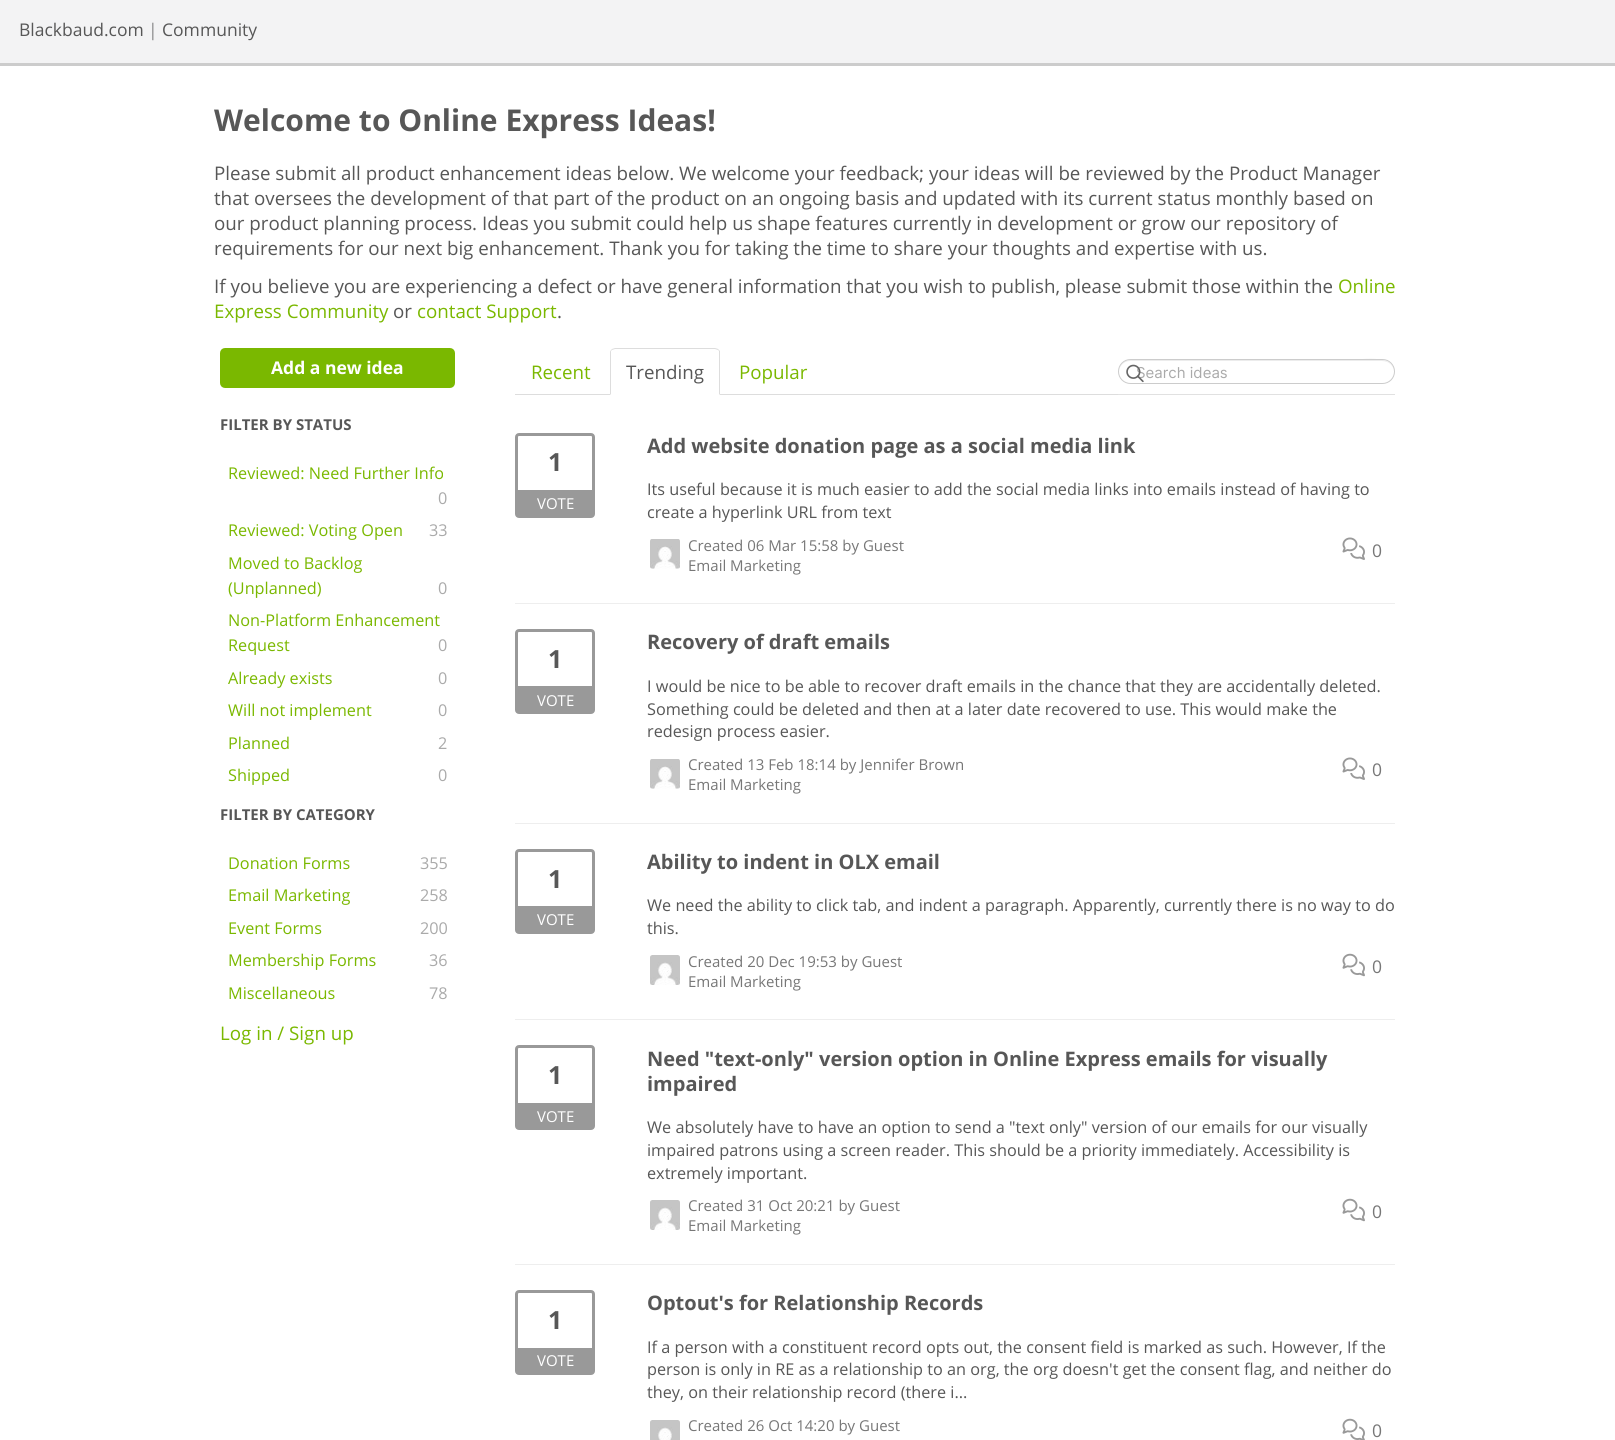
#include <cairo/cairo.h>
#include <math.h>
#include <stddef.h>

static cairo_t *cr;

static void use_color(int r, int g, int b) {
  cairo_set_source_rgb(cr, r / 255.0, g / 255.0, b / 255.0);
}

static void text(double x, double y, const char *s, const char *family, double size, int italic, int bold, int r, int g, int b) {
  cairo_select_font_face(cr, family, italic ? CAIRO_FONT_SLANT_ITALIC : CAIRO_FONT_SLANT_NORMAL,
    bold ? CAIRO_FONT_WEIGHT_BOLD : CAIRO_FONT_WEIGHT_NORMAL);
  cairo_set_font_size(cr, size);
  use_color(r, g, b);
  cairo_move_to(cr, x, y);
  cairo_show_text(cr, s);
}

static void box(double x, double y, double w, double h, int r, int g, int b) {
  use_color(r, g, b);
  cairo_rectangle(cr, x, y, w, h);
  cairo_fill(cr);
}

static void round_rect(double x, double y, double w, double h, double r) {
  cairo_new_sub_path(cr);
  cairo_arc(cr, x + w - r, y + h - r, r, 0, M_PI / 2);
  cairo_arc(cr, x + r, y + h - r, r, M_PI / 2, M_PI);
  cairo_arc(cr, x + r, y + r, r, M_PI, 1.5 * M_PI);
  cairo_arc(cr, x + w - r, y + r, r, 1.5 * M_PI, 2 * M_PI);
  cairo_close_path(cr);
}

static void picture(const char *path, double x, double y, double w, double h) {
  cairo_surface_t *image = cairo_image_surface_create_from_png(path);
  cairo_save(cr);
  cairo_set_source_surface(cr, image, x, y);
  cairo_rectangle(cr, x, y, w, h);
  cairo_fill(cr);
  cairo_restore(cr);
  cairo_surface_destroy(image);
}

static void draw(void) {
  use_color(255, 255, 255);
  cairo_paint(cr);
  box(0, 0, 1615, 63, 243, 243, 244);
  box(0, 63, 1615, 3, 204, 204, 204);
  use_color(122, 184, 0);
  round_rect(221.5, 349.5, 232, 37, 3.5);
  cairo_fill_preserve(cr);
  cairo_set_line_width(cr, 3);
  cairo_stroke(cr);
  box(515, 394, 603, 1, 221, 221, 221);
  use_color(255, 255, 255);
  cairo_new_path(cr);
  cairo_move_to(cr, 615, 348);
  cairo_line_to(cr, 715, 348);
  cairo_curve_to(cr, 718, 348, 720, 350, 720, 353);
  cairo_line_to(cr, 720, 395);
  cairo_line_to(cr, 610, 395);
  cairo_line_to(cr, 610, 353);
  cairo_curve_to(cr, 610, 350, 612, 348, 615, 348);
  cairo_close_path(cr);
  cairo_fill(cr);
  use_color(221, 221, 221);
  cairo_new_path(cr);
  cairo_move_to(cr, 615, 348);
  cairo_line_to(cr, 612, 349);
  cairo_line_to(cr, 612, 350);
  cairo_line_to(cr, 615, 349);
  cairo_line_to(cr, 715, 349);
  cairo_line_to(cr, 718, 350);
  cairo_line_to(cr, 718, 349);
  cairo_line_to(cr, 715, 348);
  cairo_close_path(cr);
  cairo_fill(cr);
  cairo_new_path(cr);
  cairo_move_to(cr, 720, 395);
  cairo_line_to(cr, 720, 351);
  cairo_line_to(cr, 718, 349);
  cairo_line_to(cr, 718, 350);
  cairo_line_to(cr, 719, 351);
  cairo_line_to(cr, 719, 394);
  cairo_close_path(cr);
  cairo_fill(cr);
  cairo_new_path(cr);
  cairo_move_to(cr, 610, 395);
  cairo_line_to(cr, 611, 394);
  cairo_line_to(cr, 611, 351);
  cairo_line_to(cr, 612, 350);
  cairo_line_to(cr, 612, 349);
  cairo_curve_to(cr, 611, 350, 610, 351, 610, 352);
  cairo_close_path(cr);
  cairo_fill(cr);
  box(1118, 394, 277, 1, 225, 225, 225);
  use_color(236, 236, 236);
  cairo_new_path(cr);
  cairo_move_to(cr, 1130, 361);
  cairo_line_to(cr, 1382, 361);
  cairo_curve_to(cr, 1389, 361, 1394, 366, 1394, 372);
  cairo_curve_to(cr, 1394, 353, 1362, 360, 1340, 360);
  cairo_line_to(cr, 1130, 360);
  cairo_curve_to(cr, 1124, 360, 1119, 365, 1119, 372);
  cairo_curve_to(cr, 1119, 366, 1124, 361, 1130, 361);
  cairo_close_path(cr);
  cairo_fill(cr);
  round_rect(1118.5, 359.5, 276, 24, 12);
  use_color(204, 204, 204);
  cairo_set_line_width(cr, 1);
  cairo_stroke(cr);
  box(515, 603, 880, 1, 238, 238, 238);
  round_rect(516.5, 434.5, 77, 82, 2.5);
  use_color(153, 153, 153);
  cairo_set_line_width(cr, 3);
  cairo_stroke(cr);
  box(518, 490, 74, 25, 153, 153, 153);
  picture("img_02.png", 650, 539, 30, 30);
  picture("img_03.png", 1342, 537, 23, 23);
  box(515, 823, 880, 1, 238, 238, 238);
  round_rect(516.5, 630.5, 77, 82, 2.5);
  use_color(153, 153, 153);
  cairo_stroke(cr);
  box(518, 686, 74, 25, 153, 153, 153);
  picture("img_02.png", 650, 759, 30, 30);
  picture("img_03.png", 1342, 757, 23, 23);
  box(515, 1019, 880, 1, 238, 238, 238);
  round_rect(516.5, 850.5, 77, 82, 2.5);
  use_color(153, 153, 153);
  cairo_stroke(cr);
  box(518, 906, 74, 25, 153, 153, 153);
  picture("img_04.png", 650, 955, 30, 30);
  picture("img_05.png", 1342, 953, 23, 24);
  box(515, 1264, 880, 1, 238, 238, 238);
  round_rect(516.5, 1046.5, 77, 82, 2.5);
  use_color(153, 153, 153);
  cairo_stroke(cr);
  box(518, 1103, 74, 24, 153, 153, 153);
  picture("img_04.png", 650, 1200, 30, 30);
  picture("img_05.png", 1342, 1198, 23, 24);
  round_rect(516.5, 1291.5, 77, 82, 2.5);
  cairo_stroke(cr);
  box(518, 1348, 74, 24, 153, 153, 153);
  picture("img_06.png", 650, 1420, 30, 20);
  picture("img_07.png", 1342, 1418, 23, 22);
  text(19, 36, "Blackbaud.com", "Open Sans", 17.5, 0, 0, 87, 87, 87);
  text(148, 36, "|", "Open Sans", 17.5, 0, 0, 136, 136, 136);
  text(162, 36, "Community", "Open Sans", 17.5, 0, 0, 87, 87, 87);
  text(214, 131, "Welcome to Online Express Ideas!", "Open Sans", 30, 0, 1, 87, 87, 87);
  text(214, 180, "Please submit all product enhancement ideas below. We welcome your feedback; your ideas will be reviewed by the Product Manager", "Open Sans", 18.75, 0, 0, 87, 87, 87);
  text(214, 205, "that oversees the development of that part of the product on an ongoing basis and updated with its current status monthly based on", "Open Sans", 18.75, 0, 0, 87, 87, 87);
  text(214, 230, "our product planning process. Ideas you submit could help us shape features currently in development or grow our repository of", "Open Sans", 18.75, 0, 0, 87, 87, 87);
  text(214, 255, "requirements for our next big enhancement. Thank you for taking the time to share your thoughts and expertise with us.", "Open Sans", 18.75, 0, 0, 87, 87, 87);
  text(214, 293, "If you believe you are experiencing a defect or have general information that you wish to publish, please submit those within the", "Open Sans", 18.75, 0, 0, 87, 87, 87);
  text(1338, 293, "Online", "Open Sans", 18.75, 0, 0, 122, 184, 0);
  text(214, 318, "Express Community", "Open Sans", 18.75, 0, 0, 122, 184, 0);
  text(393, 318, "or", "Open Sans", 18.75, 0, 0, 87, 87, 87);
  text(417, 318, "contact Support", "Open Sans", 18.75, 0, 0, 122, 184, 0);
  text(557, 318, ".", "Open Sans", 18.75, 0, 0, 87, 87, 87);
  text(271, 374, "Add a new idea", "Open Sans", 17.5, 0, 1, 255, 255, 255);
  text(220, 430, "FILTER BY STATUS", "Open Sans", 15, 0, 1, 87, 87, 87);
  text(228, 479, "Reviewed: Need Further Info", "Open Sans", 16.25, 0, 0, 122, 184, 0);
  text(438, 504, "0", "Open Sans", 16.25, 0, 0, 170, 170, 170);
  text(228, 536, "Reviewed: Voting Open", "Open Sans", 16.25, 0, 0, 122, 184, 0);
  text(429, 536, "33", "Open Sans", 16.25, 0, 0, 170, 170, 170);
  text(228, 569, "Moved to Backlog", "Open Sans", 16.25, 0, 0, 122, 184, 0);
  text(228, 594, "(Unplanned)", "Open Sans", 16.25, 0, 0, 122, 184, 0);
  text(438, 594, "0", "Open Sans", 16.25, 0, 0, 170, 170, 170);
  text(228, 626, "Non-Platform Enhancement", "Open Sans", 16.25, 0, 0, 122, 184, 0);
  text(228, 651, "Request", "Open Sans", 16.25, 0, 0, 122, 184, 0);
  text(438, 651, "0", "Open Sans", 16.25, 0, 0, 170, 170, 170);
  text(228, 684, "Already exists", "Open Sans", 16.25, 0, 0, 122, 184, 0);
  text(438, 684, "0", "Open Sans", 16.25, 0, 0, 170, 170, 170);
  text(228, 716, "Will not implement", "Open Sans", 16.25, 0, 0, 122, 184, 0);
  text(438, 716, "0", "Open Sans", 16.25, 0, 0, 170, 170, 170);
  text(228, 749, "Planned", "Open Sans", 16.25, 0, 0, 122, 184, 0);
  text(438, 749, "2", "Open Sans", 16.25, 0, 0, 170, 170, 170);
  text(228, 781, "Shipped", "Open Sans", 16.25, 0, 0, 122, 184, 0);
  text(438, 781, "0", "Open Sans", 16.25, 0, 0, 170, 170, 170);
  text(220, 820, "FILTER BY CATEGORY", "Open Sans", 15, 0, 1, 87, 87, 87);
  text(228, 869, "Donation Forms", "Open Sans", 16.25, 0, 0, 122, 184, 0);
  text(420, 869, "355", "Open Sans", 16.25, 0, 0, 170, 170, 170);
  text(228, 901, "Email Marketing", "Open Sans", 16.25, 0, 0, 122, 184, 0);
  text(420, 901, "258", "Open Sans", 16.25, 0, 0, 170, 170, 170);
  text(228, 934, "Event Forms", "Open Sans", 16.25, 0, 0, 122, 184, 0);
  text(420, 934, "200", "Open Sans", 16.25, 0, 0, 170, 170, 170);
  text(228, 966, "Membership Forms", "Open Sans", 16.25, 0, 0, 122, 184, 0);
  text(429, 966, "36", "Open Sans", 16.25, 0, 0, 170, 170, 170);
  text(228, 999, "Miscellaneous", "Open Sans", 16.25, 0, 0, 122, 184, 0);
  text(429, 999, "78", "Open Sans", 16.25, 0, 0, 170, 170, 170);
  text(220, 1040, "Log in / Sign up", "Open Sans", 18.75, 0, 0, 122, 184, 0);
  text(531, 379, "Recent", "Open Sans", 18.75, 0, 0, 122, 184, 0);
  text(626, 379, "Trending", "Open Sans", 18.75, 0, 0, 87, 87, 87);
  text(739, 379, "Popular", "Open Sans", 18.75, 0, 0, 122, 184, 0);
  text(1136, 378, "Search ideas", "Inter", 15, 0, 0, 170, 170, 170);
  picture("img_01.png", 1126, 364, 18, 19);
  text(548, 471, "1", "Open Sans", 25, 0, 1, 87, 87, 87);
  text(537, 509, "VOTE", "Open Sans", 15, 0, 0, 255, 255, 255);
  text(647, 453, "Add website donation page as a social media link", "Open Sans", 20, 0, 1, 87, 87, 87);
  text(647, 495, "Its useful because it is much easier to add the social media links into emails instead of having to", "Open Sans", 16.25, 0, 0, 87, 87, 87);
  text(647, 518, "create a hyperlink URL from text", "Open Sans", 16.25, 0, 0, 87, 87, 87);
  text(688, 551, "Created 06 Mar 15:58 by Guest", "Open Sans", 15, 0, 0, 119, 119, 119);
  text(688, 571, "Email Marketing", "Open Sans", 15, 0, 0, 119, 119, 119);
  text(1372, 557, "0", "Open Sans", 17.5, 0, 0, 119, 119, 119);
  text(548, 668, "1", "Open Sans", 25, 0, 1, 87, 87, 87);
  text(537, 706, "VOTE", "Open Sans", 15, 0, 0, 255, 255, 255);
  text(647, 649, "Recovery of draft emails", "Open Sans", 20, 0, 1, 87, 87, 87);
  text(647, 692, "I would be nice to be able to recover draft emails in the chance that they are accidentally deleted.", "Open Sans", 16.25, 0, 0, 87, 87, 87);
  text(647, 715, "Something could be deleted and then at a later date recovered to use. This would make the", "Open Sans", 16.25, 0, 0, 87, 87, 87);
  text(647, 737, "redesign process easier.", "Open Sans", 16.25, 0, 0, 87, 87, 87);
  text(688, 770, "Created 13 Feb 18:14 by Jennifer Brown", "Open Sans", 15, 0, 0, 119, 119, 119);
  text(688, 790, "Email Marketing", "Open Sans", 15, 0, 0, 119, 119, 119);
  text(1372, 776, "0", "Open Sans", 17.5, 0, 0, 119, 119, 119);
  text(548, 888, "1", "Open Sans", 25, 0, 1, 87, 87, 87);
  text(537, 925, "VOTE", "Open Sans", 15, 0, 0, 255, 255, 255);
  text(647, 869, "Ability to indent in OLX email", "Open Sans", 20, 0, 1, 87, 87, 87);
  text(647, 911, "We need the ability to click tab, and indent a paragraph. Apparently, currently there is no way to do", "Open Sans", 16.25, 0, 0, 87, 87, 87);
  text(647, 934, "this.", "Open Sans", 16.25, 0, 0, 87, 87, 87);
  text(688, 967, "Created 20 Dec 19:53 by Guest", "Open Sans", 15, 0, 0, 119, 119, 119);
  text(688, 987, "Email Marketing", "Open Sans", 15, 0, 0, 119, 119, 119);
  text(1372, 973, "0", "Open Sans", 17.5, 0, 0, 119, 119, 119);
  text(548, 1084, "1", "Open Sans", 25, 0, 1, 87, 87, 87);
  text(537, 1122, "VOTE", "Open Sans", 15, 0, 0, 255, 255, 255);
  text(647, 1066, "Need \"text-only\" version option in Online Express emails for visually", "Open Sans", 20, 0, 1, 87, 87, 87);
  text(647, 1091, "impaired", "Open Sans", 20, 0, 1, 87, 87, 87);
  text(647, 1133, "We absolutely have to have an option to send a \"text only\" version of our emails for our visually", "Open Sans", 16.25, 0, 0, 87, 87, 87);
  text(647, 1156, "impaired patrons using a screen reader. This should be a priority immediately. Accessibility is", "Open Sans", 16.25, 0, 0, 87, 87, 87);
  text(647, 1179, "extremely important.", "Open Sans", 16.25, 0, 0, 87, 87, 87);
  text(688, 1211, "Created 31 Oct 20:21 by Guest", "Open Sans", 15, 0, 0, 119, 119, 119);
  text(688, 1231, "Email Marketing", "Open Sans", 15, 0, 0, 119, 119, 119);
  text(1372, 1218, "0", "Open Sans", 17.5, 0, 0, 119, 119, 119);
  text(548, 1329, "1", "Open Sans", 25, 0, 1, 87, 87, 87);
  text(537, 1366, "VOTE", "Open Sans", 15, 0, 0, 255, 255, 255);
  text(647, 1310, "Optout's for Relationship Records", "Open Sans", 20, 0, 1, 87, 87, 87);
  text(647, 1353, "If a person with a constituent record opts out, the consent field is marked as such. However, If the", "Open Sans", 16.25, 0, 0, 87, 87, 87);
  text(647, 1375, "person is only in RE as a relationship to an org, the org doesn't get the consent flag, and neither do", "Open Sans", 16.25, 0, 0, 87, 87, 87);
  text(647, 1398, "they, on their relationship record (there i...", "Open Sans", 16.25, 0, 0, 87, 87, 87);
  text(688, 1431, "Created 26 Oct 14:20 by Guest", "Open Sans", 15, 0, 0, 119, 119, 119);
  text(1372, 1437, "0", "Open Sans", 17.5, 0, 0, 119, 119, 119);
}

int main(void) {
  cairo_surface_t *surface = cairo_image_surface_create(CAIRO_FORMAT_RGB24, 1615, 1440);
  cr = cairo_create(surface);
  cairo_font_options_t *options = cairo_font_options_create();
  cairo_font_options_set_hint_metrics(options, CAIRO_HINT_METRICS_OFF);
  cairo_font_options_set_hint_style(options, CAIRO_HINT_STYLE_NONE);
  cairo_set_font_options(cr, options);
  cairo_set_miter_limit(cr, 4);
  draw();
  cairo_surface_write_to_png(surface, "out.png");
  cairo_font_options_destroy(options);
  cairo_destroy(cr);
  cairo_surface_destroy(surface);
  return 0;
}
